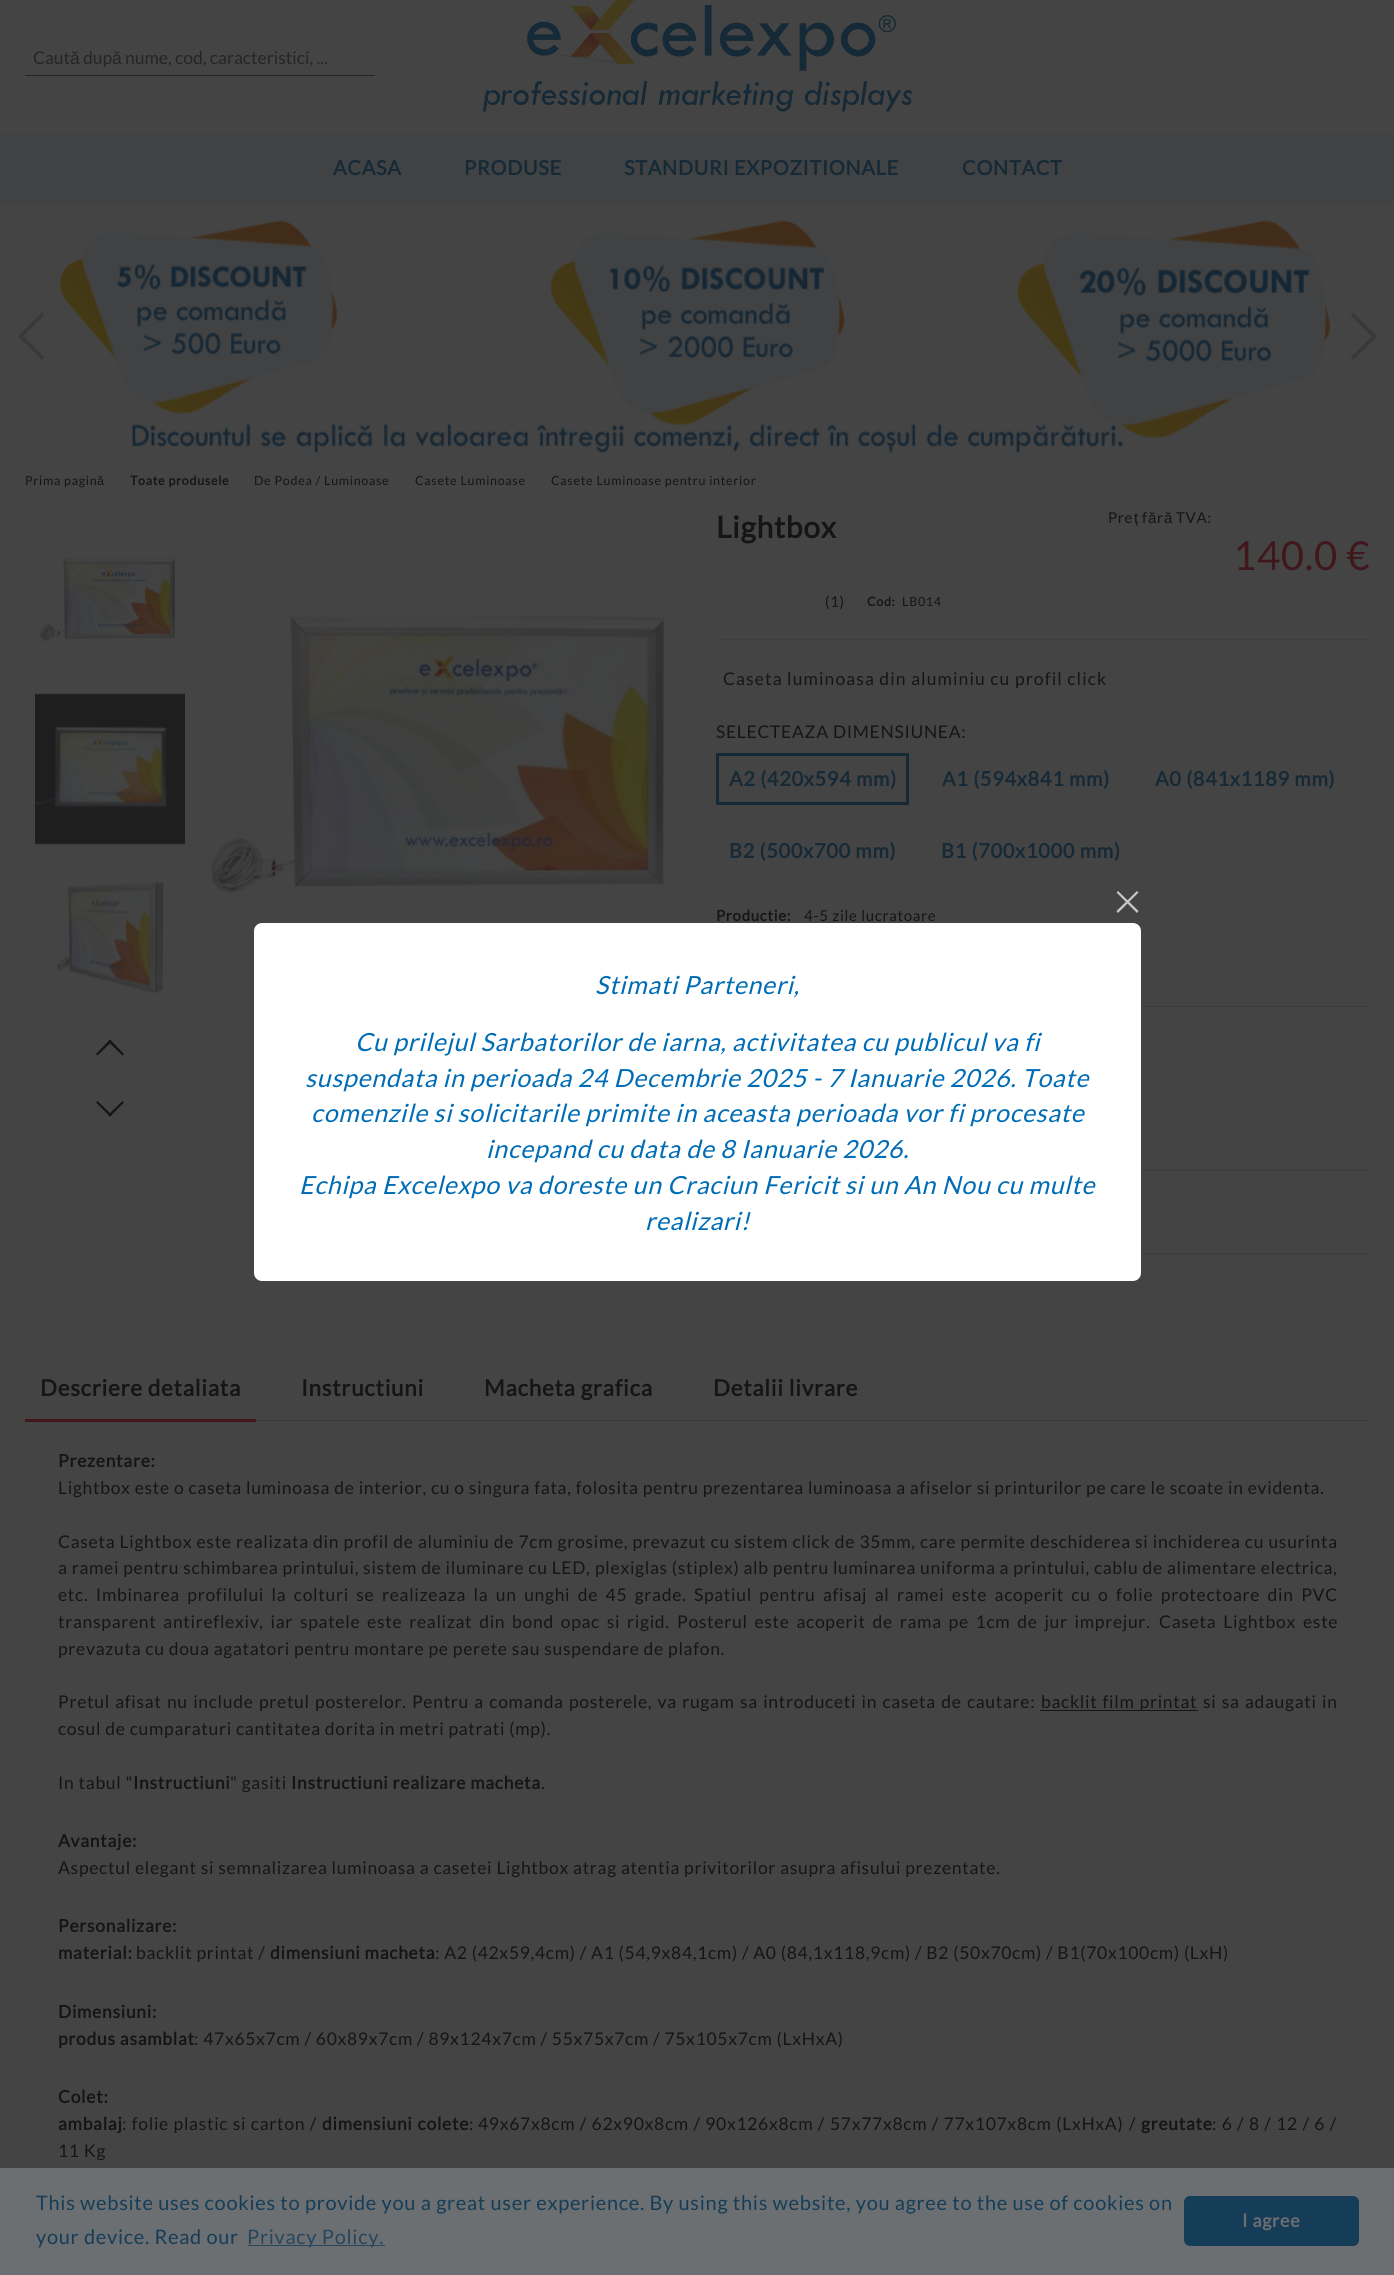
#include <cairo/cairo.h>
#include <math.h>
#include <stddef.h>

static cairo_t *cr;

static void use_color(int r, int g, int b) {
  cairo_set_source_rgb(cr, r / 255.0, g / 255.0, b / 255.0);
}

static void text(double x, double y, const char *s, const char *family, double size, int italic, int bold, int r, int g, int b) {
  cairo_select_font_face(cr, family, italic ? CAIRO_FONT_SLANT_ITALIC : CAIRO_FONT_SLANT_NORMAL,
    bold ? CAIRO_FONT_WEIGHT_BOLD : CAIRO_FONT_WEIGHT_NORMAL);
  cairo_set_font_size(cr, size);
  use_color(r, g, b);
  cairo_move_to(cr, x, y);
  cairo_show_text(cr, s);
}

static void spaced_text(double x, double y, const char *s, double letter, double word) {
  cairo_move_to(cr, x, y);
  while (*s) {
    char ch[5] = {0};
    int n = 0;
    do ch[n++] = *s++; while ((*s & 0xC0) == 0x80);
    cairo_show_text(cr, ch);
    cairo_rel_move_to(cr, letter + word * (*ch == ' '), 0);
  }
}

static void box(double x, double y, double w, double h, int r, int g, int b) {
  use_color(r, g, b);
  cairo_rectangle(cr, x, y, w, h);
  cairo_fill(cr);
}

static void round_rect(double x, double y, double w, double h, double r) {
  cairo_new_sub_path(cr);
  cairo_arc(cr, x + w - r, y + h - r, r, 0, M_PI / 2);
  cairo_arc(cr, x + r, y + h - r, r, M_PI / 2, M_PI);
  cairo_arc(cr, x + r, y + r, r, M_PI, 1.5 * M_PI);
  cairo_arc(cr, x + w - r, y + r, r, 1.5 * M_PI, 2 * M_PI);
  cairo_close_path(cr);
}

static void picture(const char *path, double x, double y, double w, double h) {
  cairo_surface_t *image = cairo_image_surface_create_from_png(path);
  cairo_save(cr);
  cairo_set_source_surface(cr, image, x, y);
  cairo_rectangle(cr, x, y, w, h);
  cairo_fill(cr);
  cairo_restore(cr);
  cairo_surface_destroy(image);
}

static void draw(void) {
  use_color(68, 68, 68);
  cairo_paint(cr);
  box(25, 75, 350, 1, 37, 37, 37);
  picture("img_01.png", 482, 0, 431, 112);
  box(0, 133, 1394, 71, 65, 66, 67);
  picture("img_02.png", 59, 219, 1271, 235);
  use_color(57, 57, 57);
  cairo_new_path(cr);
  cairo_move_to(cr, 44.5, 357.5);
  cairo_line_to(cr, 42, 360);
  cairo_line_to(cr, 18, 336);
  cairo_line_to(cr, 20.5, 333.5);
  cairo_close_path(cr);
  cairo_fill(cr);
  cairo_new_path(cr);
  cairo_move_to(cr, 44.5, 315);
  cairo_line_to(cr, 20.5, 339);
  cairo_line_to(cr, 18, 336);
  cairo_line_to(cr, 42, 312.5);
  cairo_close_path(cr);
  cairo_fill(cr);
  cairo_new_path(cr);
  cairo_move_to(cr, 1350.5, 315);
  cairo_line_to(cr, 1353, 312.5);
  cairo_line_to(cr, 1377, 336);
  cairo_line_to(cr, 1374.5, 339);
  cairo_close_path(cr);
  cairo_fill(cr);
  cairo_new_path(cr);
  cairo_move_to(cr, 1350.5, 357.5);
  cairo_line_to(cr, 1374.5, 333.5);
  cairo_line_to(cr, 1377, 336);
  cairo_line_to(cr, 1353, 360);
  cairo_close_path(cr);
  cairo_fill(cr);
  picture("img_03.png", 39, 557, 136, 85);
  picture("img_04.png", 35, 693, 150, 152);
  picture("img_05.png", 56, 882, 108, 112);
  use_color(21, 21, 21);
  cairo_new_path(cr);
  cairo_move_to(cr, 97.5, 1055.5);
  cairo_line_to(cr, 96, 1054);
  cairo_line_to(cr, 110, 1039.5);
  cairo_line_to(cr, 112, 1041.5);
  cairo_close_path(cr);
  cairo_fill(cr);
  cairo_new_path(cr);
  cairo_move_to(cr, 122.5, 1055.5);
  cairo_line_to(cr, 108, 1041.5);
  cairo_line_to(cr, 110, 1039.5);
  cairo_line_to(cr, 124, 1054);
  cairo_close_path(cr);
  cairo_fill(cr);
  cairo_new_path(cr);
  cairo_move_to(cr, 122.5, 1101);
  cairo_line_to(cr, 124, 1102.5);
  cairo_line_to(cr, 110, 1116.5);
  cairo_line_to(cr, 108, 1115);
  cairo_close_path(cr);
  cairo_fill(cr);
  cairo_new_path(cr);
  cairo_move_to(cr, 97.5, 1101);
  cairo_line_to(cr, 112, 1115);
  cairo_line_to(cr, 110, 1116.5);
  cairo_line_to(cr, 96, 1102.5);
  cairo_close_path(cr);
  cairo_fill(cr);
  picture("img_06.png", 206, 612, 459, 286);
  box(716, 639, 654, 1, 62, 62, 62);
  cairo_rectangle(cr, 717.5, 754.5, 190, 49);
  use_color(21, 41, 54);
  cairo_set_line_width(cr, 3);
  cairo_stroke(cr);
  box(1141, 1006, 229, 1, 59, 59, 59);
  box(1141, 1170, 229, 1, 59, 59, 59);
  box(1141, 1253, 229, 1, 59, 59, 59);
  box(256, 1420, 1114, 1, 59, 59, 59);
  box(25, 1419, 231, 3, 64, 24, 28);
  box(1040, 1710, 158, 1, 21, 21, 21);
  use_color(255, 255, 255);
  round_rect(254, 923, 887, 358, 8);
  cairo_fill(cr);
  use_color(199, 199, 199);
  cairo_new_path(cr);
  cairo_move_to(cr, 1137, 891);
  cairo_line_to(cr, 1138.5, 892.5);
  cairo_line_to(cr, 1118, 913);
  cairo_line_to(cr, 1116.5, 911);
  cairo_close_path(cr);
  cairo_fill(cr);
  cairo_new_path(cr);
  cairo_move_to(cr, 1116.5, 892.5);
  cairo_line_to(cr, 1118, 891);
  cairo_line_to(cr, 1138.5, 911);
  cairo_line_to(cr, 1137, 913);
  cairo_close_path(cr);
  cairo_fill(cr);
  box(0, 2168, 1394, 107, 108, 111, 113);
  box(248, 2245, 137, 1, 38, 71, 93);
  use_color(21, 61, 88);
  round_rect(1184, 2196, 175, 50, 6);
  cairo_fill(cr);
  text(33, 64, "Caut", "Lato", 17.5, 0, 0, 37, 37, 37);
  text(70, 64, "ă", "Liberation Sans", 17.5, 0, 0, 37, 37, 37);
  text(83, 64, "dup", "Lato", 17.5, 0, 0, 37, 37, 37);
  text(112, 64, "ă", "Liberation Sans", 17.5, 0, 0, 37, 37, 37);
  text(125, 64, "nume, cod, caracteristici, ...", "Lato", 17.5, 0, 0, 37, 37, 37);
  cairo_select_font_face(cr, "Lato", CAIRO_FONT_SLANT_NORMAL, CAIRO_FONT_WEIGHT_BOLD);
  cairo_set_font_size(cr, 20);
  use_color(21, 41, 54);
  spaced_text(333, 175, "ACASA", 0.7, 0);
  spaced_text(464, 175, "PRODUSE", 0.7, 0);
  spaced_text(624, 175, "STANDURI EXPOZITIONALE", 0.7, 0);
  spaced_text(962, 175, "CONTACT", 0.7, 0);
  cairo_select_font_face(cr, "Lato", CAIRO_FONT_SLANT_NORMAL, CAIRO_FONT_WEIGHT_NORMAL);
  cairo_set_font_size(cr, 12.5);
  use_color(21, 21, 21);
  spaced_text(25, 485, "Prima pagin", 0.7, 0);
  cairo_select_font_face(cr, "Liberation Sans", CAIRO_FONT_SLANT_NORMAL, CAIRO_FONT_WEIGHT_NORMAL);
  spaced_text(97, 485, "ă", 0.7, 0);
  cairo_select_font_face(cr, "Lato", CAIRO_FONT_SLANT_NORMAL, CAIRO_FONT_WEIGHT_BOLD);
  spaced_text(130, 485, "Toate produsele", 0.7, 0);
  cairo_select_font_face(cr, "Lato", CAIRO_FONT_SLANT_NORMAL, CAIRO_FONT_WEIGHT_NORMAL);
  spaced_text(254, 485, "De Podea / Luminoase", 0.7, 0);
  spaced_text(415, 485, "Casete Luminoase", 0.7, 0);
  spaced_text(551, 485, "Casete Luminoase pentru interior", 0.7, 0);
  cairo_select_font_face(cr, "Lato", CAIRO_FONT_SLANT_NORMAL, CAIRO_FONT_WEIGHT_BOLD);
  cairo_set_font_size(cr, 30);
  spaced_text(716, 538, "Lightbox", 0.7, 0);
  cairo_select_font_face(cr, "Lato", CAIRO_FONT_SLANT_NORMAL, CAIRO_FONT_WEIGHT_NORMAL);
  cairo_set_font_size(cr, 15);
  spaced_text(1108, 523, "Pre", 0.7, 0);
  cairo_select_font_face(cr, "Liberation Sans", CAIRO_FONT_SLANT_NORMAL, CAIRO_FONT_WEIGHT_NORMAL);
  spaced_text(1134, 523, "ț", 0.7, 0);
  cairo_select_font_face(cr, "Lato", CAIRO_FONT_SLANT_NORMAL, CAIRO_FONT_WEIGHT_NORMAL);
  spaced_text(1142, 523, "f", 0.7, 0);
  cairo_select_font_face(cr, "Liberation Sans", CAIRO_FONT_SLANT_NORMAL, CAIRO_FONT_WEIGHT_NORMAL);
  spaced_text(1148, 523, "ă", 0.7, 0);
  cairo_select_font_face(cr, "Lato", CAIRO_FONT_SLANT_NORMAL, CAIRO_FONT_WEIGHT_NORMAL);
  spaced_text(1157, 523, "r", 0.7, 0);
  cairo_select_font_face(cr, "Liberation Sans", CAIRO_FONT_SLANT_NORMAL, CAIRO_FONT_WEIGHT_NORMAL);
  spaced_text(1164, 523, "ă", 0.7, 0);
  cairo_select_font_face(cr, "Lato", CAIRO_FONT_SLANT_NORMAL, CAIRO_FONT_WEIGHT_NORMAL);
  spaced_text(1176, 523, "TVA:", 0.7, 0);
  cairo_set_font_size(cr, 40);
  use_color(64, 24, 28);
  spaced_text(1233, 570, "140.0 €", 0.7, 0);
  cairo_set_font_size(cr, 15);
  use_color(21, 21, 21);
  spaced_text(825, 607, "(1)", 0.7, 0);
  cairo_select_font_face(cr, "Lato", CAIRO_FONT_SLANT_NORMAL, CAIRO_FONT_WEIGHT_BOLD);
  cairo_set_font_size(cr, 12.5);
  spaced_text(867, 606, "Cod:", 0.7, 0);
  cairo_select_font_face(cr, "Lato", CAIRO_FONT_SLANT_NORMAL, CAIRO_FONT_WEIGHT_NORMAL);
  spaced_text(902, 606, "LB014", 0.7, 0);
  cairo_set_font_size(cr, 17.5);
  spaced_text(723, 685, "Caseta luminoasa din aluminiu cu profil click", 1.1, 0);
  spaced_text(716, 738, "SELECTEAZA DIMENSIUNEA:", 0.7, 0);
  cairo_select_font_face(cr, "Lato", CAIRO_FONT_SLANT_NORMAL, CAIRO_FONT_WEIGHT_BOLD);
  cairo_set_font_size(cr, 20);
  use_color(21, 41, 54);
  spaced_text(729, 786, "A2 (420x594 mm)", 0.7, 0);
  spaced_text(942, 786, "A1 (594x841 mm)", 0.7, 0);
  spaced_text(1155, 786, "A0 (841x1189 mm)", 0.7, 0);
  spaced_text(729, 858, "B2 (500x700 mm)", 0.7, 0);
  spaced_text(941, 858, "B1 (700x1000 mm)", 0.7, 0);
  cairo_set_font_size(cr, 15);
  use_color(21, 21, 21);
  spaced_text(716, 921, "Productie:", 0.7, 0);
  cairo_select_font_face(cr, "Lato", CAIRO_FONT_SLANT_NORMAL, CAIRO_FONT_WEIGHT_NORMAL);
  spaced_text(804, 921, "4-5 zile lucratoare", 0.7, 0);
  cairo_select_font_face(cr, "Lato", CAIRO_FONT_SLANT_NORMAL, CAIRO_FONT_WEIGHT_BOLD);
  cairo_set_font_size(cr, 22.5);
  spaced_text(40, 1396, "Descriere detaliata", 0.7, 0);
  spaced_text(301, 1396, "Instructiuni", 0.7, 0);
  spaced_text(484, 1396, "Macheta grafica", 0.7, 0);
  spaced_text(713, 1396, "Detalii livrare", 0.7, 0);
  cairo_set_font_size(cr, 17.5);
  spaced_text(58, 1467, "Prezentare:", 0.7, 0);
  cairo_select_font_face(cr, "Lato", CAIRO_FONT_SLANT_NORMAL, CAIRO_FONT_WEIGHT_NORMAL);
  spaced_text(58, 1494, "Lightbox este o caseta luminoasa de interior, cu o singura fata, folosita pentru prezentarea luminoasa a afiselor si printurilor pe care le scoate in evidenta.", 0.7, 0);
  spaced_text(58, 1548, "Caseta Lightbox este realizata din profil de aluminiu de 7cm grosime, prevazut cu sistem click de 35mm, care permite deschiderea si inchiderea cu usurinta", 0.7, 0.25);
  spaced_text(58, 1574, "a ramei pentru schimbarea printului, sistem de iluminare cu LED,", 0.7, 0);
  spaced_text(595, 1574, "plexiglas (stiplex) alb pentru luminarea uniforma a printului, cablu de alimentare electrica,", 0.7, 0);
  spaced_text(58, 1601, "etc. Imbinarea profilului la colturi se realizeaza la un unghi de 45 grade. Spatiul pentru afisaj al ramei este acoperit cu o folie protectoare din PVC", 0.7, 3.4);
  spaced_text(58, 1628, "transparent antireflexiv, iar spatele este realizat din bond opac si rigid.", 0.7, 2.75);
  spaced_text(677, 1628, "Posterul este acoperit de rama pe 1cm de jur imprejur.", 0.7, 2.75);
  spaced_text(1159, 1628, "Caseta Lightbox este", 0.7, 3);
  spaced_text(58, 1655, "prevazuta cu doua agatatori pentru montare pe perete sau suspendare de plafon.", 0.7, 0);
  spaced_text(58, 1708, "Pretul afisat nu include pretul posterelor. Pentru a comanda posterele, va rugam sa introduceti in caseta de cautare:", 0.7, 1.25);
  spaced_text(1041, 1708, "backlit film printat", 0.7, 1);
  spaced_text(1203, 1708, "si sa adaugati in", 0.7, 1.25);
  spaced_text(58, 1735, "cosul de cumparaturi cantitatea dorita in metri patrati (mp).", 0.7, 0);
  spaced_text(58, 1789, "In tabul \"", 0.7, 0);
  cairo_select_font_face(cr, "Lato", CAIRO_FONT_SLANT_NORMAL, CAIRO_FONT_WEIGHT_BOLD);
  spaced_text(133, 1789, "Instructiuni", 0.7, 0);
  cairo_select_font_face(cr, "Lato", CAIRO_FONT_SLANT_NORMAL, CAIRO_FONT_WEIGHT_NORMAL);
  spaced_text(230, 1789, "\" gasiti", 0.7, 0);
  cairo_select_font_face(cr, "Lato", CAIRO_FONT_SLANT_NORMAL, CAIRO_FONT_WEIGHT_BOLD);
  spaced_text(291, 1789, "Instructiuni realizare macheta", 0.7, 0);
  cairo_select_font_face(cr, "Lato", CAIRO_FONT_SLANT_NORMAL, CAIRO_FONT_WEIGHT_NORMAL);
  spaced_text(541, 1789, ".", 0.7, 0);
  cairo_select_font_face(cr, "Lato", CAIRO_FONT_SLANT_NORMAL, CAIRO_FONT_WEIGHT_BOLD);
  spaced_text(58, 1847, "Avantaje:", 0.7, 0);
  cairo_select_font_face(cr, "Lato", CAIRO_FONT_SLANT_NORMAL, CAIRO_FONT_WEIGHT_NORMAL);
  spaced_text(58, 1874, "Aspectul elegant si semnalizarea luminoasa a casetei Lightbox atrag atentia privitorilor asupra afisului prezentate.", 0.7, 0);
  cairo_select_font_face(cr, "Lato", CAIRO_FONT_SLANT_NORMAL, CAIRO_FONT_WEIGHT_BOLD);
  spaced_text(58, 1932, "Personalizare:", 0.7, 0);
  spaced_text(58, 1959, "material:", 0.7, 0);
  cairo_select_font_face(cr, "Lato", CAIRO_FONT_SLANT_NORMAL, CAIRO_FONT_WEIGHT_NORMAL);
  spaced_text(136, 1959, "backlit printat /", 0.7, 0);
  cairo_select_font_face(cr, "Lato", CAIRO_FONT_SLANT_NORMAL, CAIRO_FONT_WEIGHT_BOLD);
  spaced_text(270, 1959, "dimensiuni macheta", 0.7, 0);
  cairo_select_font_face(cr, "Lato", CAIRO_FONT_SLANT_NORMAL, CAIRO_FONT_WEIGHT_NORMAL);
  spaced_text(435, 1959, ": A2 (42x59,4cm) / A1 (54,9x84,1cm) / A0 (84,1x118,9cm) / B2 (50x70cm) / B1(70x100cm) (LxH)", 0.7, 0);
  cairo_select_font_face(cr, "Lato", CAIRO_FONT_SLANT_NORMAL, CAIRO_FONT_WEIGHT_BOLD);
  spaced_text(58, 2018, "Dimensiuni:", 0.7, 0);
  spaced_text(58, 2045, "produs asamblat", 0.7, 0);
  cairo_select_font_face(cr, "Lato", CAIRO_FONT_SLANT_NORMAL, CAIRO_FONT_WEIGHT_NORMAL);
  spaced_text(194, 2045, ": 47x65x7cm / 60x89x7cm / 89x124x7cm / 55x75x7cm / 75x105x7cm (LxHxA)", 0.7, 0);
  cairo_select_font_face(cr, "Lato", CAIRO_FONT_SLANT_NORMAL, CAIRO_FONT_WEIGHT_BOLD);
  spaced_text(58, 2103, "Colet:", 0.7, 0);
  spaced_text(58, 2130, "ambalaj", 0.7, 0);
  cairo_select_font_face(cr, "Lato", CAIRO_FONT_SLANT_NORMAL, CAIRO_FONT_WEIGHT_NORMAL);
  spaced_text(122, 2130, ": folie plastic si carton /", 0.7, 0.5);
  cairo_select_font_face(cr, "Lato", CAIRO_FONT_SLANT_NORMAL, CAIRO_FONT_WEIGHT_BOLD);
  spaced_text(322, 2130, "dimensiuni colete", 0.7, 1);
  cairo_select_font_face(cr, "Lato", CAIRO_FONT_SLANT_NORMAL, CAIRO_FONT_WEIGHT_NORMAL);
  spaced_text(469, 2130, ":", 0.7, 0);
  spaced_text(478, 2130, "49x67x8cm / 62x90x8cm / 90x126x8cm /", 0.7, 0.5);
  spaced_text(830, 2130, "57x77x8cm / 77x107x8cm (LxHxA)", 0.7, 0.5);
  spaced_text(1129, 2130, "/", 0.7, 0);
  cairo_select_font_face(cr, "Lato", CAIRO_FONT_SLANT_NORMAL, CAIRO_FONT_WEIGHT_BOLD);
  spaced_text(1141, 2130, "greutate", 0.7, 0);
  cairo_select_font_face(cr, "Lato", CAIRO_FONT_SLANT_NORMAL, CAIRO_FONT_WEIGHT_NORMAL);
  spaced_text(1212, 2130, ": 6 / 8 / 12 / 6 /", 0.7, 0.5);
  spaced_text(58, 2157, "11 Kg", 0.7, 0);
  cairo_select_font_face(cr, "Lato", CAIRO_FONT_SLANT_ITALIC, CAIRO_FONT_WEIGHT_NORMAL);
  cairo_set_font_size(cr, 25);
  use_color(0, 108, 181);
  spaced_text(595, 994, "Stimati Parteneri,", 0.7, 0);
  spaced_text(355, 1051, "Cu prilejul Sarbatorilor de iarna, activitatea cu publicul va fi", 0.7, 0);
  spaced_text(305, 1087, "suspendata in perioada 24 Decembrie 2025 - 7 Ianuarie 2026. Toate", 0.7, 0);
  spaced_text(311, 1122, "comenzile si solicitarile primite in aceasta perioada vor fi procesate", 0.7, 0);
  spaced_text(486, 1158, "incepand cu data de 8 Ianuarie 2026.", 0.7, 0);
  spaced_text(299, 1194, "Echipa Excelexpo va doreste un Craciun Fericit si un An Nou cu multe", 0.7, 0);
  spaced_text(645, 1230, "realizari!", 0.7, 0);
  cairo_select_font_face(cr, "Lato", CAIRO_FONT_SLANT_NORMAL, CAIRO_FONT_WEIGHT_NORMAL);
  cairo_set_font_size(cr, 20);
  use_color(21, 61, 88);
  spaced_text(36, 2210, "This website uses cookies to provide you a great user experience. By using this website, you agree to the use of cookies on", 0.7, 0);
  spaced_text(36, 2244, "your device. Read our", 0.7, 0);
  use_color(38, 71, 93);
  spaced_text(247, 2244, "Privacy Policy.", 0.7, 0);
  cairo_select_font_face(cr, "Lato", CAIRO_FONT_SLANT_NORMAL, CAIRO_FONT_WEIGHT_BOLD);
  cairo_set_font_size(cr, 18);
  use_color(108, 111, 113);
  spaced_text(1242, 2227, "I agree", 0.7, 0);
}

int main(void) {
  cairo_surface_t *surface = cairo_image_surface_create(CAIRO_FORMAT_RGB24, 1394, 2275);
  cr = cairo_create(surface);
  cairo_font_options_t *options = cairo_font_options_create();
  cairo_font_options_set_hint_metrics(options, CAIRO_HINT_METRICS_OFF);
  cairo_font_options_set_hint_style(options, CAIRO_HINT_STYLE_NONE);
  cairo_set_font_options(cr, options);
  cairo_set_miter_limit(cr, 4);
  draw();
  cairo_surface_write_to_png(surface, "out.png");
  cairo_font_options_destroy(options);
  cairo_destroy(cr);
  cairo_surface_destroy(surface);
  return 0;
}
